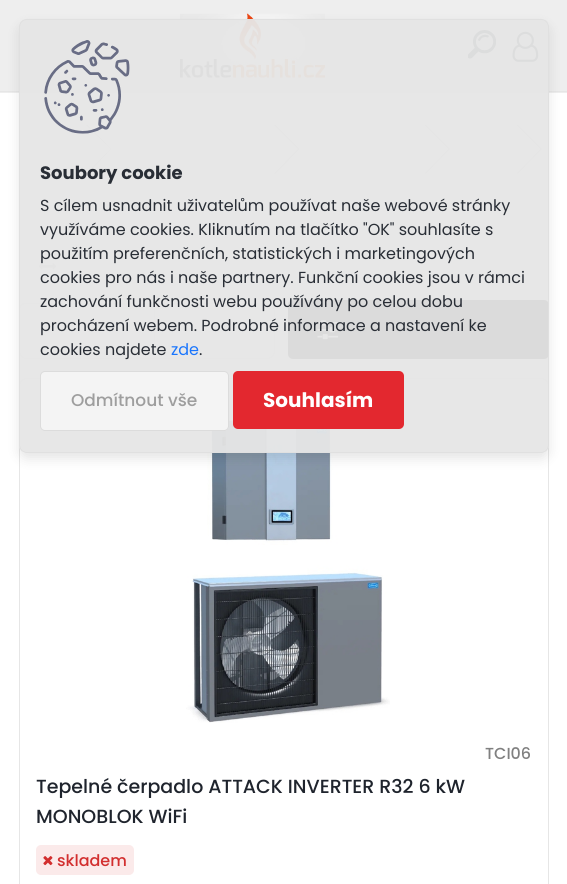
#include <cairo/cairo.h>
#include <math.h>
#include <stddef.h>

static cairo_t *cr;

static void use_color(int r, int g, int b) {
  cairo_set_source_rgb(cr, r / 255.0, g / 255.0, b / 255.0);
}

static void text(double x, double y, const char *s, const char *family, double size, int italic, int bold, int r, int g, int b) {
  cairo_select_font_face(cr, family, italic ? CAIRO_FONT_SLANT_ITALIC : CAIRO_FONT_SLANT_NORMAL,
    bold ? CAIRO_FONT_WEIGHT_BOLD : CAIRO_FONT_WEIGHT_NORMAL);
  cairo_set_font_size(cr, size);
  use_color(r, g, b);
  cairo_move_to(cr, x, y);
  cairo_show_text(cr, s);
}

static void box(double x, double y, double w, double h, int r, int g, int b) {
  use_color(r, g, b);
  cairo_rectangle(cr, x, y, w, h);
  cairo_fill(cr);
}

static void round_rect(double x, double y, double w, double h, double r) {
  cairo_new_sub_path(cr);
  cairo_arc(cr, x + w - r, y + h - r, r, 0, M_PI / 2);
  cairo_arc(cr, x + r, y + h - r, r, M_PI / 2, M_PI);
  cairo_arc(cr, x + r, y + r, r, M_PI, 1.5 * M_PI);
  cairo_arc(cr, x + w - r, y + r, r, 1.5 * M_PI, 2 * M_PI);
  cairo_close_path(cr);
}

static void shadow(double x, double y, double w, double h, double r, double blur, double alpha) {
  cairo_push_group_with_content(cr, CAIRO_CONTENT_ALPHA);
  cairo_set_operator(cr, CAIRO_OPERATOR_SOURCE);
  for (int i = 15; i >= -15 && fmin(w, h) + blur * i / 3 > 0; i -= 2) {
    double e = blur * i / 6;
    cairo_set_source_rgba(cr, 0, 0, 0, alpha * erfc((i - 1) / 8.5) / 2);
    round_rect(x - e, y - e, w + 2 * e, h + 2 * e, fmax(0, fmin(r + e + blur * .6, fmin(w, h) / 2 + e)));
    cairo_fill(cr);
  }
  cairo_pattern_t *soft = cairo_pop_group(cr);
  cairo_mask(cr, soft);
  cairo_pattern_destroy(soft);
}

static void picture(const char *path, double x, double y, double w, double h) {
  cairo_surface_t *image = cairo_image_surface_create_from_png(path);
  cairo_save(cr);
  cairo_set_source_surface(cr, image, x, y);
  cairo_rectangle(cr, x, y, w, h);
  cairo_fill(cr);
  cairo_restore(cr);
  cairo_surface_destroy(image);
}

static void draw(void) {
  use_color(255, 255, 255);
  cairo_paint(cr);
  box(0, 0, 567, 93, 238, 238, 238);
  box(0, 91, 567, 1, 230, 230, 230);
  picture("img_02.png", 180, 13, 145, 65);
  picture("img_03.png", 468, 30, 28, 29);
  picture("img_04.png", 512, 31, 27, 31);
  use_color(215, 215, 215);
  cairo_new_path(cr);
  cairo_move_to(cr, 86, 125);
  cairo_line_to(cr, 87.5, 125);
  cairo_line_to(cr, 111.5, 149);
  cairo_line_to(cr, 110.5, 149);
  cairo_close_path(cr);
  cairo_move_to(cr, 110.5, 149);
  cairo_line_to(cr, 111.5, 149);
  cairo_line_to(cr, 87.5, 173.5);
  cairo_line_to(cr, 86, 173.5);
  cairo_close_path(cr);
  cairo_fill(cr);
  cairo_new_path(cr);
  cairo_move_to(cr, 274, 125);
  cairo_line_to(cr, 275.5, 125);
  cairo_line_to(cr, 299.5, 149);
  cairo_line_to(cr, 298, 149);
  cairo_close_path(cr);
  cairo_move_to(cr, 298, 149);
  cairo_line_to(cr, 299.5, 149);
  cairo_line_to(cr, 275.5, 173.5);
  cairo_line_to(cr, 274, 173.5);
  cairo_close_path(cr);
  cairo_fill(cr);
  cairo_new_path(cr);
  cairo_move_to(cr, 424.5, 125);
  cairo_line_to(cr, 426, 125);
  cairo_line_to(cr, 450, 149);
  cairo_line_to(cr, 448.5, 149);
  cairo_close_path(cr);
  cairo_move_to(cr, 448.5, 149);
  cairo_line_to(cr, 450, 149);
  cairo_line_to(cr, 426, 173.5);
  cairo_line_to(cr, 424.5, 173.5);
  cairo_close_path(cr);
  cairo_fill(cr);
  cairo_new_path(cr);
  cairo_move_to(cr, 516.5, 125);
  cairo_line_to(cr, 518, 125);
  cairo_line_to(cr, 542, 149);
  cairo_line_to(cr, 540.5, 149);
  cairo_close_path(cr);
  cairo_move_to(cr, 540.5, 149);
  cairo_line_to(cr, 542, 149);
  cairo_line_to(cr, 518, 173.5);
  cairo_line_to(cr, 516.5, 173.5);
  cairo_close_path(cr);
  cairo_fill(cr);
  picture("img_05.png", 38, 263, 19, 7);
  cairo_save(cr);
  cairo_rectangle(cr, 19, 303, 256, 56);
  cairo_clip(cr);
  use_color(230, 230, 230);
  cairo_set_fill_rule(cr, CAIRO_FILL_RULE_EVEN_ODD);
  cairo_new_path(cr);
  cairo_move_to(cr, 26, 302);
  cairo_line_to(cr, 154, 302);
  cairo_line_to(cr, 154, 359);
  cairo_line_to(cr, 26, 359);
  cairo_curve_to(cr, 22, 359, 19, 355, 19, 351);
  cairo_line_to(cr, 19, 310);
  cairo_curve_to(cr, 19, 306, 22, 302, 26, 302);
  cairo_close_path(cr);
  cairo_move_to(cr, 26, 304);
  cairo_line_to(cr, 154, 304);
  cairo_line_to(cr, 154, 358);
  cairo_line_to(cr, 26, 358);
  cairo_curve_to(cr, 23, 358, 20, 355, 20, 351);
  cairo_line_to(cr, 20, 310);
  cairo_curve_to(cr, 20, 307, 23, 304, 26, 304);
  cairo_close_path(cr);
  cairo_fill(cr);
  cairo_restore(cr);
  cairo_new_path(cr);
  cairo_move_to(cr, 154.5, 303.5);
  cairo_line_to(cr, 267, 303.5);
  cairo_curve_to(cr, 271, 303.5, 274.5, 307, 274.5, 311);
  cairo_line_to(cr, 274.5, 351);
  cairo_curve_to(cr, 274.5, 355, 271, 358.5, 267, 358.5);
  cairo_line_to(cr, 154.5, 358.5);
  cairo_close_path(cr);
  use_color(230, 230, 230);
  cairo_set_line_width(cr, 1);
  cairo_stroke(cr);
  use_color(0, 0, 0);
  round_rect(288, 300, 261, 59, 5);
  cairo_fill(cr);
  picture("img_06.png", 317, 320, 22, 20);
  round_rect(19.5, 378.5, 529, 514, 7.5);
  use_color(230, 230, 230);
  cairo_stroke(cr);
  picture("img_07.png", 186, 420, 204, 303);
  cairo_save(cr);
  cairo_set_fill_rule(cr, CAIRO_FILL_RULE_EVEN_ODD);
  cairo_new_path(cr);
  cairo_move_to(cr, 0, 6);
  cairo_line_to(cr, 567, 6);
  cairo_line_to(cr, 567, 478);
  cairo_line_to(cr, 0, 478);
  cairo_close_path(cr);
  cairo_move_to(cr, 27, 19);
  cairo_line_to(cr, 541, 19);
  cairo_curve_to(cr, 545.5, 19, 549, 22.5, 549, 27);
  cairo_line_to(cr, 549, 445);
  cairo_curve_to(cr, 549, 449.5, 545.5, 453, 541, 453);
  cairo_line_to(cr, 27, 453);
  cairo_curve_to(cr, 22.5, 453, 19, 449.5, 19, 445);
  cairo_line_to(cr, 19, 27);
  cairo_curve_to(cr, 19, 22.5, 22.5, 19, 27, 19);
  cairo_close_path(cr);
  cairo_clip(cr);
  use_color(0, 0, 0);
  shadow(19, 25, 530, 434, 8, 6, 0.1);
  cairo_restore(cr);
  cairo_set_source_rgba(cr, 0.902, 0.902, 0.902, 0.95);
  round_rect(19, 19, 530, 434, 8);
  cairo_fill(cr);
  round_rect(19.5, 19.5, 529, 433, 7.5);
  cairo_set_source_rgba(cr, 0.878, 0.878, 0.878, 0.95);
  cairo_stroke(cr);
  picture("img_01.png", 44, 40, 86, 94);
  cairo_set_source_rgba(cr, 0.961, 0.961, 0.961, 0.95);
  round_rect(40, 371, 189, 60, 5);
  cairo_fill(cr);
  round_rect(40.5, 371.5, 188, 59, 4.5);
  cairo_set_source_rgba(cr, 0, 0, 0, 0.1);
  cairo_stroke(cr);
  cairo_set_source_rgba(cr, 0.89, 0.122, 0.149, 0.95);
  round_rect(233, 371, 171, 58, 5);
  cairo_fill(cr);
  use_color(251, 234, 234);
  round_rect(36, 845, 98, 30, 5);
  cairo_fill(cr);
  picture("img_08.png", 43, 856, 10, 10);
  text(40, 179, "Soubory cookie", "Poppins", 18, 0, 1, 41, 46, 54);
  text(40, 211, "S cílem usnadnit uživatelům používat naše webové stránky", "Poppins", 16, 0, 0, 41, 46, 54);
  text(40, 235, "využíváme cookies. Kliknutím na tlačítko \"OK\" souhlasíte s", "Poppins", 16, 0, 0, 41, 46, 54);
  text(40, 259, "použitím preferenčních, statistických i marketingových", "Poppins", 16, 0, 0, 41, 46, 54);
  text(40, 283, "cookies pro nás i naše partnery. Funkční cookies jsou v rámci", "Poppins", 16, 0, 0, 41, 46, 54);
  text(40, 307, "zachování funkčnosti webu používány po celou dobu", "Poppins", 16, 0, 0, 41, 46, 54);
  text(40, 331, "procházení webem. Podrobné informace a nastavení ke", "Poppins", 16, 0, 0, 41, 46, 54);
  text(40, 355, "cookies najdete", "Poppins", 16, 0, 0, 41, 46, 54);
  text(171, 355, "zde", "Poppins", 16, 0, 0, 25, 117, 253);
  text(199, 355, ".", "Poppins", 16, 0, 0, 41, 46, 54);
  text(71, 406, "Odmítnout vše", "Poppins Medium", 17, 0, 0, 158, 158, 158);
  text(263, 407, "Souhlasím", "Poppins", 20, 0, 1, 255, 255, 255);
  text(485, 759, "TCI06", "Poppins Medium", 16, 0, 0, 128, 128, 128);
  text(36, 793, "Tepelné čerpadlo ATTACK INVERTER R32 6 kW", "Poppins Medium", 19, 0, 0, 31, 36, 45);
  text(36, 823, "MONOBLOK WiFi", "Poppins Medium", 19, 0, 0, 31, 36, 45);
  text(57, 866, "skladem", "Poppins Medium", 16, 0, 0, 210, 47, 47);
}

int main(void) {
  cairo_surface_t *surface = cairo_image_surface_create(CAIRO_FORMAT_RGB24, 567, 884);
  cr = cairo_create(surface);
  cairo_font_options_t *options = cairo_font_options_create();
  cairo_font_options_set_hint_metrics(options, CAIRO_HINT_METRICS_OFF);
  cairo_font_options_set_hint_style(options, CAIRO_HINT_STYLE_NONE);
  cairo_set_font_options(cr, options);
  cairo_set_miter_limit(cr, 4);
  draw();
  cairo_surface_write_to_png(surface, "out.png");
  cairo_font_options_destroy(options);
  cairo_destroy(cr);
  cairo_surface_destroy(surface);
  return 0;
}
